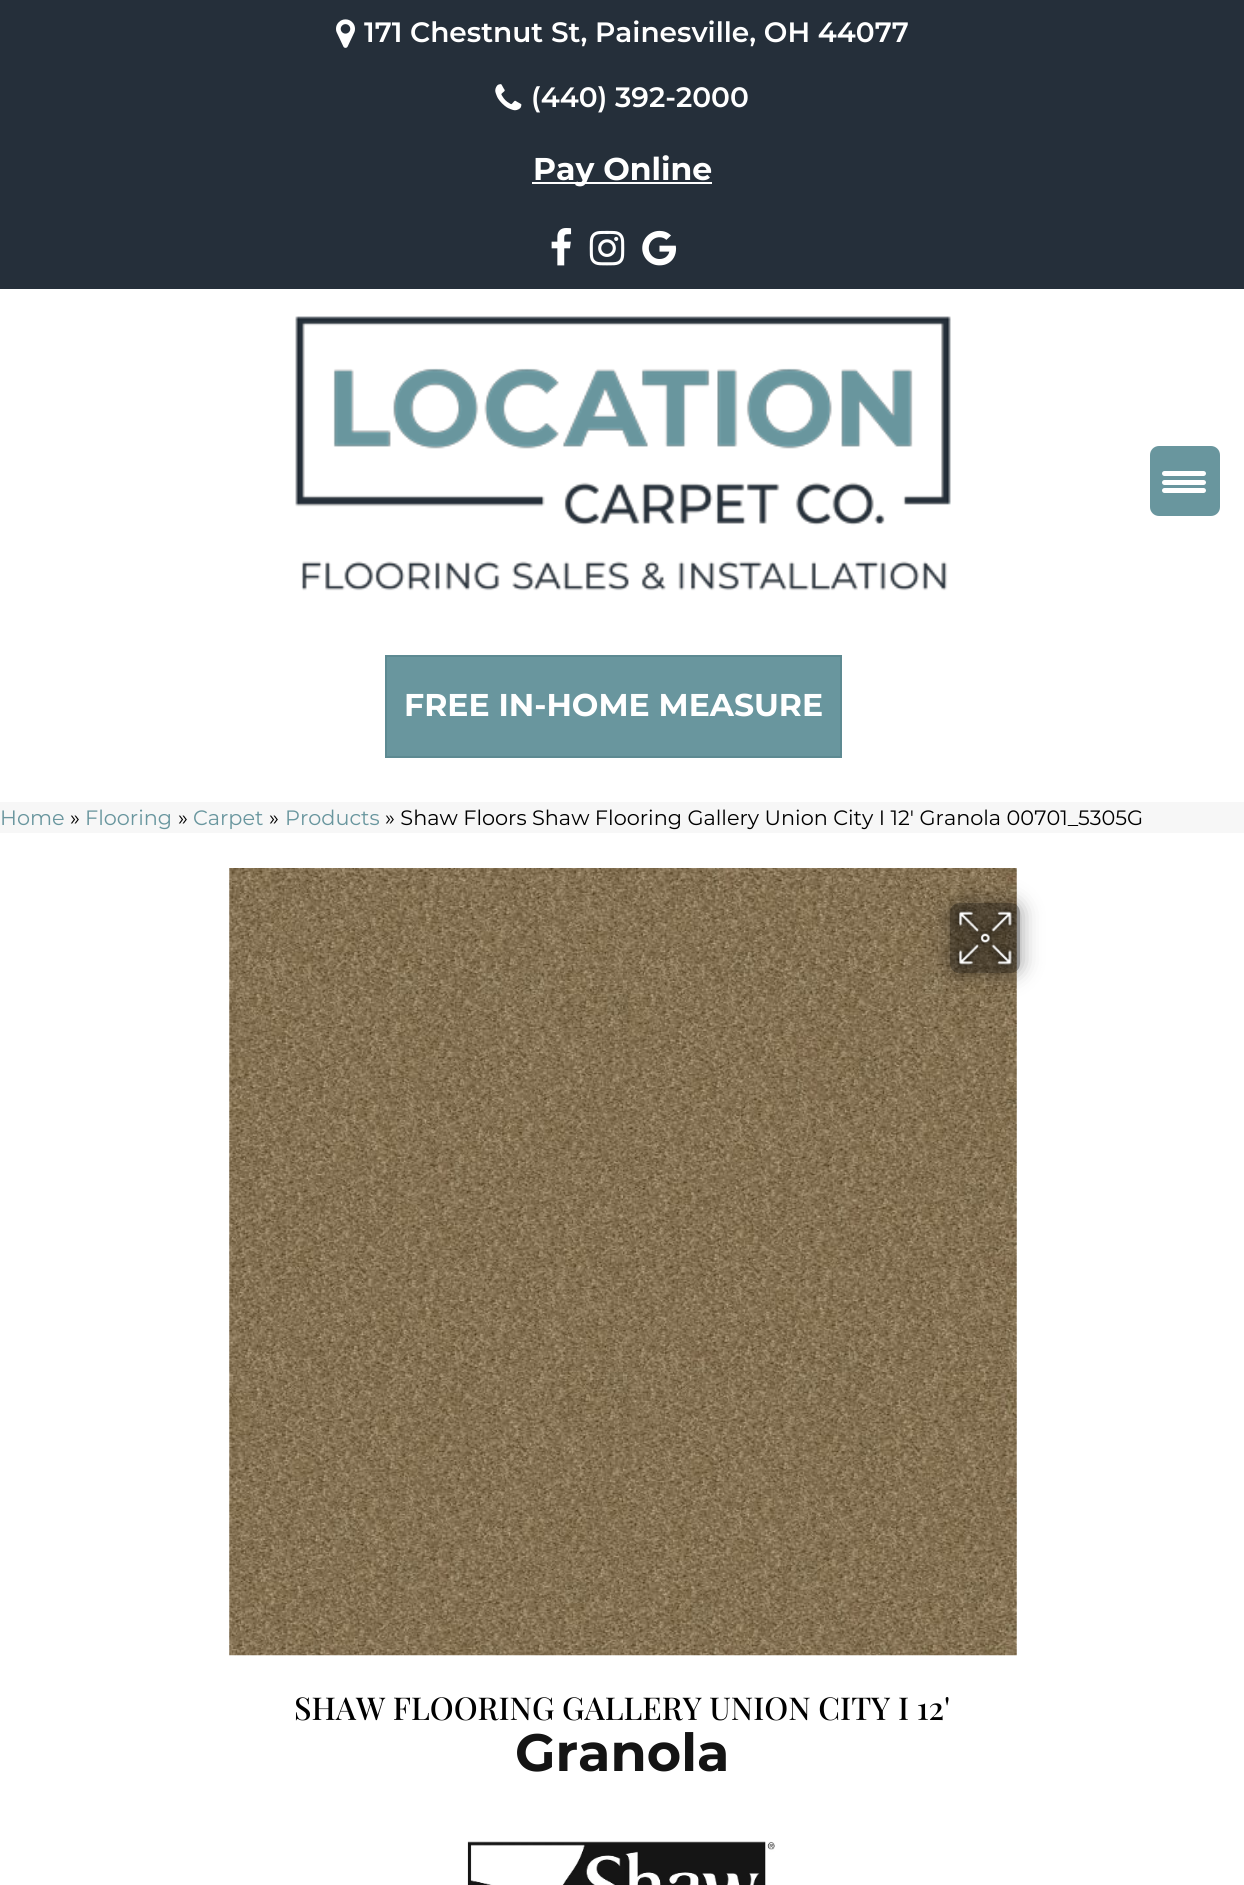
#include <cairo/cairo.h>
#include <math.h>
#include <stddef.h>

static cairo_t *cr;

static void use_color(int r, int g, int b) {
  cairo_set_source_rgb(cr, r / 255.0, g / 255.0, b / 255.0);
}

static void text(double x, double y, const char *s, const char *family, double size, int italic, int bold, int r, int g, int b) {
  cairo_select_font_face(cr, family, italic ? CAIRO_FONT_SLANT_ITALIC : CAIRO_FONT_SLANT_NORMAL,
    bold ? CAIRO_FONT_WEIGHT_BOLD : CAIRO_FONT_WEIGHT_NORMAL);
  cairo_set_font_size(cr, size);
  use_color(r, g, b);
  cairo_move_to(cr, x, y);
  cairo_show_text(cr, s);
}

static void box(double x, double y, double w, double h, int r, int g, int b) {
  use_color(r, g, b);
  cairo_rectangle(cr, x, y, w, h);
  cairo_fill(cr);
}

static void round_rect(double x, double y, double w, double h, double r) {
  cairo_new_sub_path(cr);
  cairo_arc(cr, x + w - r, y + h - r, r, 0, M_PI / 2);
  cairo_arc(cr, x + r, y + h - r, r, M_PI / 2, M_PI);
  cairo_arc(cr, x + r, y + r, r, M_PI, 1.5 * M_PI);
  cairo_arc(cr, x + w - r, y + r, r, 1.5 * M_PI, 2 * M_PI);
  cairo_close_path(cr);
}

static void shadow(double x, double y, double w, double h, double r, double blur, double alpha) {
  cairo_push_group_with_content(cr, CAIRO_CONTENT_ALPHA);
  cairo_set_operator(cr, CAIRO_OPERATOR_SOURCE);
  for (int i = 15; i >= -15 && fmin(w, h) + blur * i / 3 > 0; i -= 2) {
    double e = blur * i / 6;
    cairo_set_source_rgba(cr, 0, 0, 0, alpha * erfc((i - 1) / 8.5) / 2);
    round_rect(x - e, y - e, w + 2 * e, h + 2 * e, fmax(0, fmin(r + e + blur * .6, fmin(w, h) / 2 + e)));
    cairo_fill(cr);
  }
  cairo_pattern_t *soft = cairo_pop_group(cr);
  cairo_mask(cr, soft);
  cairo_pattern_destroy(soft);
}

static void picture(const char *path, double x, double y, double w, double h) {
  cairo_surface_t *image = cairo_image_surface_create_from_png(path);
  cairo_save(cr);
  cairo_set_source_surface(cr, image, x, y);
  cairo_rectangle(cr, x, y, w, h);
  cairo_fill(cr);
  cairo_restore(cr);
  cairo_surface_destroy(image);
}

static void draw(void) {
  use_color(255, 255, 255);
  cairo_paint(cr);
  box(0, 0, 1244, 289, 37, 47, 58);
  picture("img_01.png", 336, 19, 19, 29);
  picture("img_02.png", 495, 84, 27, 27);
  box(532, 182, 180, 2, 255, 255, 255);
  picture("img_03.png", 551, 228, 21, 38);
  picture("img_04.png", 589, 230, 36, 36);
  picture("img_05.png", 642, 230, 35, 36);
  picture("img_06.png", 295, 316, 656, 275);
  use_color(105, 150, 158);
  cairo_rectangle(cr, 386, 656, 455, 101);
  cairo_fill_preserve(cr);
  use_color(93, 138, 146);
  cairo_stroke(cr);
  box(0, 802, 1244, 31, 247, 247, 247);
  picture("img_07.png", 229, 868, 788, 788);
  cairo_save(cr);
  cairo_set_fill_rule(cr, CAIRO_FILL_RULE_EVEN_ODD);
  cairo_new_path(cr);
  cairo_move_to(cr, 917, 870);
  cairo_line_to(cr, 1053, 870);
  cairo_line_to(cr, 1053, 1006);
  cairo_line_to(cr, 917, 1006);
  cairo_close_path(cr);
  cairo_move_to(cr, 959, 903);
  cairo_line_to(cr, 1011, 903);
  cairo_curve_to(cr, 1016, 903, 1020, 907, 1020, 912);
  cairo_line_to(cr, 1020, 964);
  cairo_curve_to(cr, 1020, 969, 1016, 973, 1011, 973);
  cairo_line_to(cr, 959, 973);
  cairo_curve_to(cr, 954, 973, 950, 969, 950, 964);
  cairo_line_to(cr, 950, 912);
  cairo_curve_to(cr, 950, 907, 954, 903, 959, 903);
  cairo_close_path(cr);
  cairo_clip(cr);
  use_color(0, 0, 0);
  shadow(950, 903, 70, 70, 9, 10.5, 0.41);
  cairo_restore(cr);
  cairo_set_source_rgba(cr, 0, 0, 0, 0.4);
  round_rect(950, 903, 70, 70, 9);
  cairo_fill(cr);
  picture("img_08.png", 954, 907, 64, 62);
  picture("img_09.png", 467, 1841, 308, 44);
  use_color(105, 150, 158);
  round_rect(1150, 446, 70, 70, 9);
  cairo_fill(cr);
  use_color(255, 255, 255);
  round_rect(1162, 480, 44, 5, 2.5);
  cairo_fill(cr);
  round_rect(1162, 471, 44, 5, 2.5);
  cairo_fill(cr);
  round_rect(1162, 488, 44, 5, 2.5);
  cairo_fill(cr);
  text(364, 42, "171 Chestnut St, Painesville, OH 44077", "Montserrat SemiBold", 28, 0, 0, 255, 255, 255);
  text(531, 107, "(440) 392-2000", "Montserrat SemiBold", 28, 0, 0, 255, 255, 255);
  text(533, 180, "Pay Online", "Montserrat", 31.5, 0, 1, 255, 255, 255);
  text(404, 716, "FREE IN-HOME MEASURE", "Montserrat", 31.5, 0, 1, 255, 255, 255);
  text(0, 825, "Home", "Montserrat", 20.8, 0, 0, 105, 150, 158);
  text(70, 825, "»", "Montserrat", 20.8, 0, 0, 0, 0, 0);
  text(85, 825, "Flooring", "Montserrat", 20.8, 0, 0, 105, 150, 158);
  text(178, 825, "»", "Montserrat", 20.8, 0, 0, 0, 0, 0);
  text(193, 825, "Carpet", "Montserrat", 20.8, 0, 0, 105, 150, 158);
  text(269, 825, "»", "Montserrat", 20.8, 0, 0, 0, 0, 0);
  text(285, 825, "Products", "Montserrat", 20.8, 0, 0, 105, 150, 158);
  text(385, 825, "» Shaw Floors Shaw Flooring Gallery Union City I 12′ Granola 00701_5305G", "Montserrat", 20.8, 0, 0, 0, 0, 0);
  text(294, 1720, "SHAW FLOORING GALLERY UNION CITY I 12'", "Playfair Display Medium", 31.5, 0, 0, 0, 0, 0);
  text(515, 1771, "Granola", "Montserrat", 52.5, 0, 1, 20, 20, 20);
}

int main(void) {
  cairo_surface_t *surface = cairo_image_surface_create(CAIRO_FORMAT_RGB24, 1244, 1885);
  cr = cairo_create(surface);
  cairo_font_options_t *options = cairo_font_options_create();
  cairo_font_options_set_hint_metrics(options, CAIRO_HINT_METRICS_OFF);
  cairo_font_options_set_hint_style(options, CAIRO_HINT_STYLE_NONE);
  cairo_set_font_options(cr, options);
  cairo_set_miter_limit(cr, 4);
  draw();
  cairo_surface_write_to_png(surface, "out.png");
  cairo_font_options_destroy(options);
  cairo_destroy(cr);
  cairo_surface_destroy(surface);
  return 0;
}
